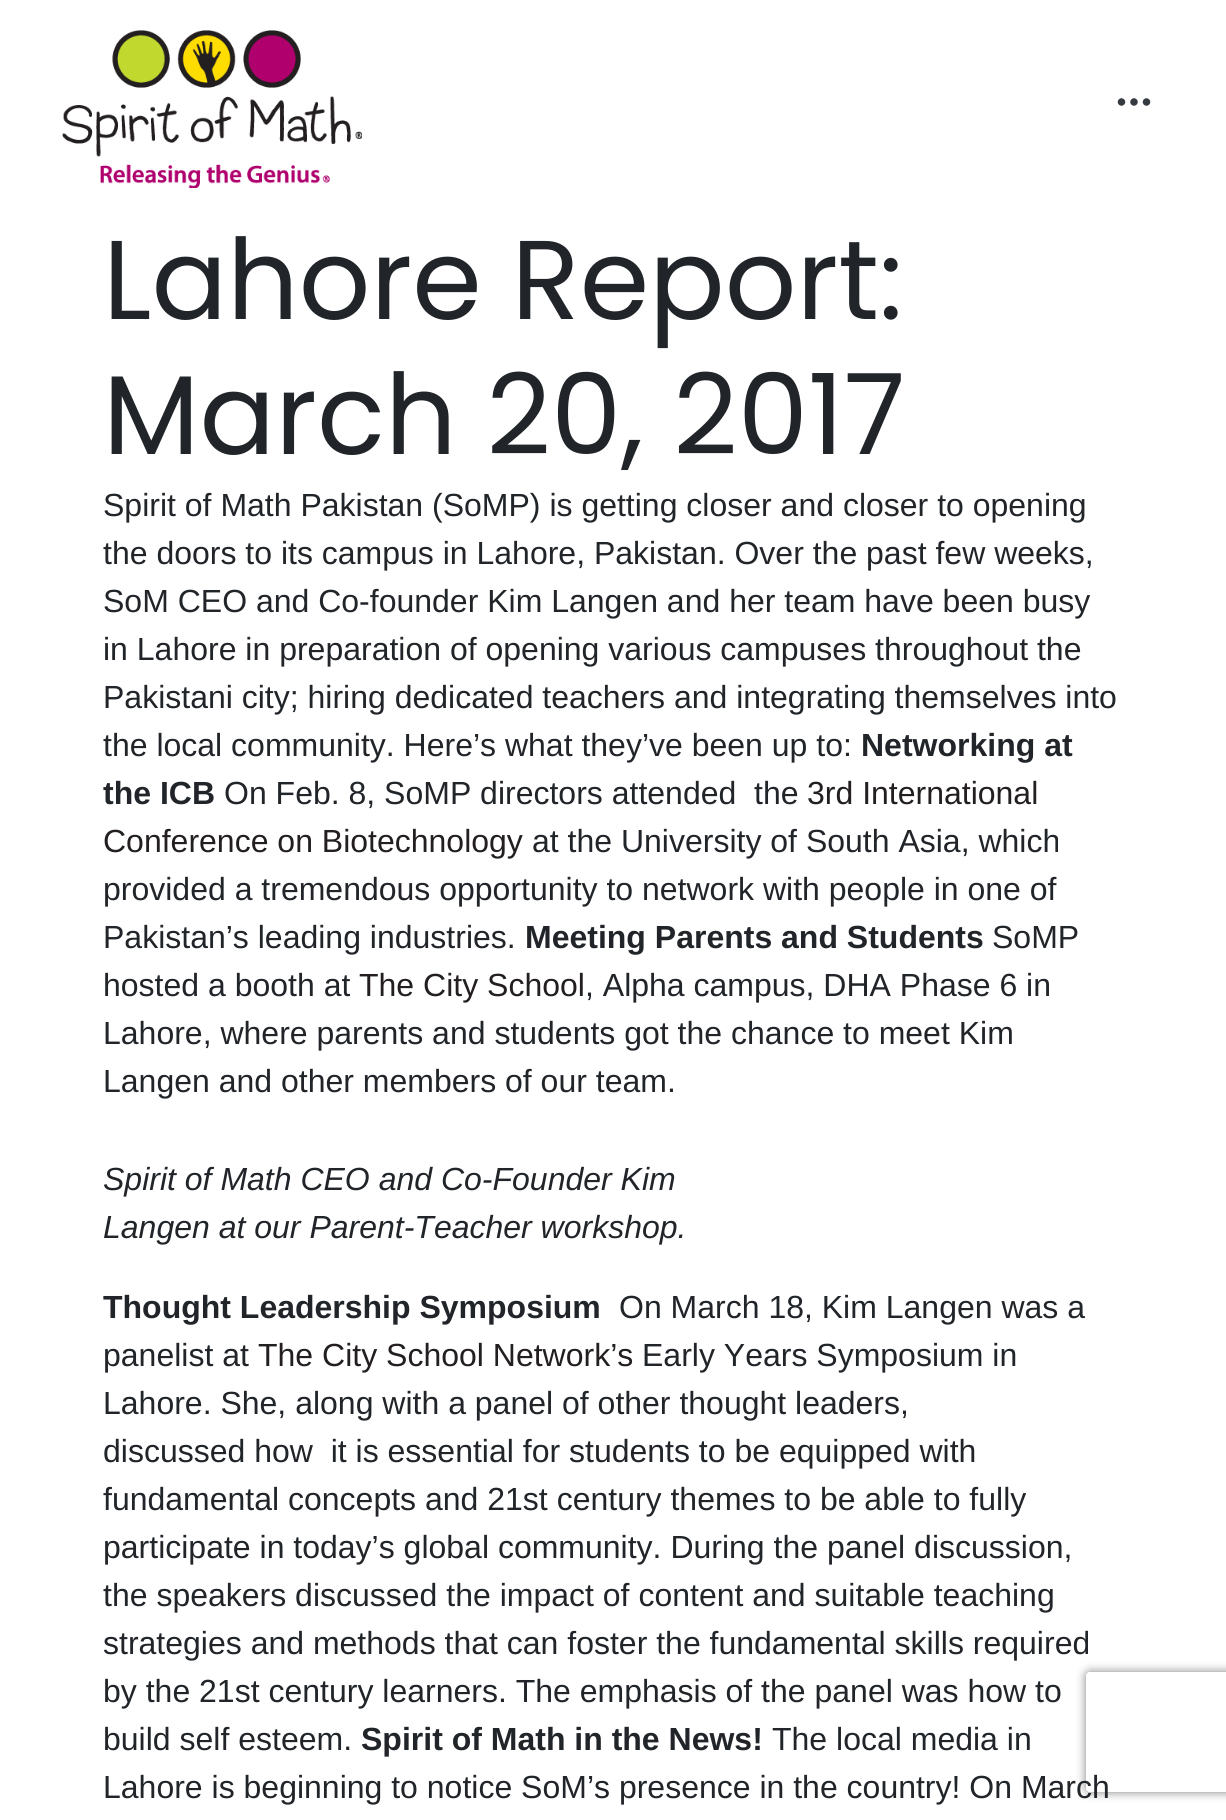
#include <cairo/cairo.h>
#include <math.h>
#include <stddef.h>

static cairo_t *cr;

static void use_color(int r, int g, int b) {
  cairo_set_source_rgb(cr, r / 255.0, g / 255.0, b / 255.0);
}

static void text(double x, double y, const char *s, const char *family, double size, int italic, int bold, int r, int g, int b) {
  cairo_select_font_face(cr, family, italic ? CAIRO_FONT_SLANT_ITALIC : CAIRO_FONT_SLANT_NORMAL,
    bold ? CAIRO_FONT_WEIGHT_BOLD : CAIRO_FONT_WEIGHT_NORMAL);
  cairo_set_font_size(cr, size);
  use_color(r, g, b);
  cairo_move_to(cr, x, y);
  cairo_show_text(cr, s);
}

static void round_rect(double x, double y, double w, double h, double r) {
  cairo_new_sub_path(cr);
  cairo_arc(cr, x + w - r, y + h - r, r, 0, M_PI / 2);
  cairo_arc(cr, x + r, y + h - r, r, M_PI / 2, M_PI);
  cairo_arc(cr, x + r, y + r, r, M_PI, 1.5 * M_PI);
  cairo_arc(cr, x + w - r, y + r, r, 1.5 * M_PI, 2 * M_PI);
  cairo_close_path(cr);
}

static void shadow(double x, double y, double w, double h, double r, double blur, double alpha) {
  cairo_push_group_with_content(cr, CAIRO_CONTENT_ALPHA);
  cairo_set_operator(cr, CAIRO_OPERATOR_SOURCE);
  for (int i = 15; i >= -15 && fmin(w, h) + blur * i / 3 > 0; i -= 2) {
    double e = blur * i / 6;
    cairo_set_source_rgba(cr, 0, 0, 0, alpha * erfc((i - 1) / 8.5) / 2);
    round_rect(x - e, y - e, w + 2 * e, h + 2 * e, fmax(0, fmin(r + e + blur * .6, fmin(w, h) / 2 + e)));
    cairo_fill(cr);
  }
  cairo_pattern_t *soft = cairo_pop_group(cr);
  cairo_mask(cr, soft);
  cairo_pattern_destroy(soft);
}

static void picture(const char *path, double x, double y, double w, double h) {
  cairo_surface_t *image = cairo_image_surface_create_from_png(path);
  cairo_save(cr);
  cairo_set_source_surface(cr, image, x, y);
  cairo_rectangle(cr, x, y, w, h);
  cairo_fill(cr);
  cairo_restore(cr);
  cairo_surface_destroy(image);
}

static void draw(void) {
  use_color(255, 255, 255);
  cairo_paint(cr);
  picture("img_01.png", 62, 30, 300, 158);
  picture("img_02.png", 1117, 98, 34, 8);
  cairo_save(cr);
  cairo_set_fill_rule(cr, CAIRO_FILL_RULE_EVEN_ODD);
  cairo_new_path(cr);
  cairo_move_to(cr, 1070, 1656);
  cairo_line_to(cr, 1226, 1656);
  cairo_line_to(cr, 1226, 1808);
  cairo_line_to(cr, 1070, 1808);
  cairo_close_path(cr);
  cairo_move_to(cr, 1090, 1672);
  cairo_line_to(cr, 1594, 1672);
  cairo_curve_to(cr, 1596, 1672, 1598, 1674, 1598, 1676);
  cairo_line_to(cr, 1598, 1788);
  cairo_curve_to(cr, 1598, 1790, 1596, 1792, 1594, 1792);
  cairo_line_to(cr, 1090, 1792);
  cairo_curve_to(cr, 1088, 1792, 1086, 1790, 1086, 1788);
  cairo_line_to(cr, 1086, 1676);
  cairo_curve_to(cr, 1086, 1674, 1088, 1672, 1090, 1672);
  cairo_close_path(cr);
  cairo_clip(cr);
  use_color(128, 128, 128);
  shadow(1086, 1672, 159, 120, 4, 5, 1);
  cairo_restore(cr);
  text(103, 319, "Lahore Report:", "Poppins", 112, 0, 0, 33, 37, 41);
  text(103, 454, "March 20, 2017", "Poppins", 112, 0, 0, 33, 37, 41);
  text(103, 516, "Spirit of Math Pakistan (SoMP) is getting closer and closer to opening", "Liberation Sans", 32, 0, 0, 33, 37, 41);
  text(103, 564, "the doors to its campus in Lahore, Pakistan. Over the past few weeks,", "Liberation Sans", 32, 0, 0, 33, 37, 41);
  text(103, 612, "SoM CEO and Co-founder Kim Langen and her team have been busy", "Liberation Sans", 32, 0, 0, 33, 37, 41);
  text(103, 660, "in Lahore in preparation of opening various campuses throughout the", "Liberation Sans", 32, 0, 0, 33, 37, 41);
  text(103, 708, "Pakistani city; hiring dedicated teachers and integrating themselves into", "Liberation Sans", 32, 0, 0, 33, 37, 41);
  text(103, 756, "the local community. Here’s what they’ve been up to:", "Liberation Sans", 32, 0, 0, 33, 37, 41);
  text(861, 756, "Networking at", "Liberation Sans", 32, 0, 1, 33, 37, 41);
  text(103, 804, "the ICB", "Liberation Sans", 32, 0, 1, 33, 37, 41);
  text(224, 804, "On Feb. 8, SoMP directors attended  the", "Liberation Sans", 32, 0, 0, 33, 37, 41);
  text(807, 804, "3rd International", "Liberation Sans", 32, 0, 0, 35, 31, 32);
  text(103, 852, "Conference on Biotechnology", "Liberation Sans", 32, 0, 0, 35, 31, 32);
  text(532, 852, "at the University of South Asia, which", "Liberation Sans", 32, 0, 0, 33, 37, 41);
  text(103, 900, "provided a tremendous opportunity to network with people in one of", "Liberation Sans", 32, 0, 0, 33, 37, 41);
  text(103, 948, "Pakistan’s leading industries.", "Liberation Sans", 32, 0, 0, 33, 37, 41);
  text(525, 948, "Meeting Parents and Students", "Liberation Sans", 32, 0, 1, 33, 37, 41);
  text(992, 948, "SoMP", "Liberation Sans", 32, 0, 0, 33, 37, 41);
  text(103, 996, "hosted a booth at", "Liberation Sans", 32, 0, 0, 33, 37, 41);
  text(359, 996, "The City School", "Liberation Sans", 32, 0, 0, 35, 31, 32);
  text(585, 996, ", Alpha campus, DHA Phase 6 in", "Liberation Sans", 32, 0, 0, 33, 37, 41);
  text(103, 1044, "Lahore, where parents and students got the chance to meet Kim", "Liberation Sans", 32, 0, 0, 33, 37, 41);
  text(103, 1092, "Langen and other members of our team.", "Liberation Sans", 32, 0, 0, 33, 37, 41);
  text(103, 1190, "Spirit of Math CEO and Co-Founder Kim", "Liberation Sans", 32, 1, 0, 33, 37, 41);
  text(103, 1238, "Langen at our Parent-Teacher workshop.", "Liberation Sans", 32, 1, 0, 33, 37, 41);
  text(103, 1318, "Thought Leadership Symposium", "Liberation Sans", 32, 0, 1, 33, 37, 41);
  text(619, 1318, "On March 18, Kim Langen was a", "Liberation Sans", 32, 0, 0, 33, 37, 41);
  text(103, 1366, "panelist at", "Liberation Sans", 32, 0, 0, 33, 37, 41);
  text(258, 1366, "The City School Network’s", "Liberation Sans", 32, 0, 0, 35, 31, 32);
  text(642, 1366, "Early Years Symposium in", "Liberation Sans", 32, 0, 0, 33, 37, 41);
  text(103, 1414, "Lahore. She, along with a panel of other thought leaders,", "Liberation Sans", 32, 0, 0, 33, 37, 41);
  text(103, 1462, "discussed how  it is essential for students to be equipped with", "Liberation Sans", 32, 0, 0, 33, 37, 41);
  text(103, 1510, "fundamental concepts and 21st century themes to be able to fully", "Liberation Sans", 32, 0, 0, 33, 37, 41);
  text(103, 1558, "participate in today’s global community. During the panel discussion,", "Liberation Sans", 32, 0, 0, 33, 37, 41);
  text(103, 1606, "the speakers discussed the impact of content and suitable teaching", "Liberation Sans", 32, 0, 0, 33, 37, 41);
  text(103, 1654, "strategies and methods that can foster the fundamental skills required", "Liberation Sans", 32, 0, 0, 33, 37, 41);
  text(103, 1702, "by the 21st century learners. The emphasis of the panel was how to", "Liberation Sans", 32, 0, 0, 33, 37, 41);
  text(103, 1750, "build self esteem.", "Liberation Sans", 32, 0, 0, 33, 37, 41);
  text(361, 1750, "Spirit of Math in the News!", "Liberation Sans", 32, 0, 1, 33, 37, 41);
  text(772, 1750, "The local media in", "Liberation Sans", 32, 0, 0, 33, 37, 41);
  text(103, 1798, "Lahore is beginning to notice SoM’s presence in the country! On March", "Liberation Sans", 32, 0, 0, 33, 37, 41);
}

int main(void) {
  cairo_surface_t *surface = cairo_image_surface_create(CAIRO_FORMAT_RGB24, 1226, 1820);
  cr = cairo_create(surface);
  cairo_font_options_t *options = cairo_font_options_create();
  cairo_font_options_set_hint_metrics(options, CAIRO_HINT_METRICS_OFF);
  cairo_font_options_set_hint_style(options, CAIRO_HINT_STYLE_NONE);
  cairo_set_font_options(cr, options);
  cairo_set_miter_limit(cr, 4);
  draw();
  cairo_surface_write_to_png(surface, "out.png");
  cairo_font_options_destroy(options);
  cairo_destroy(cr);
  cairo_surface_destroy(surface);
  return 0;
}
